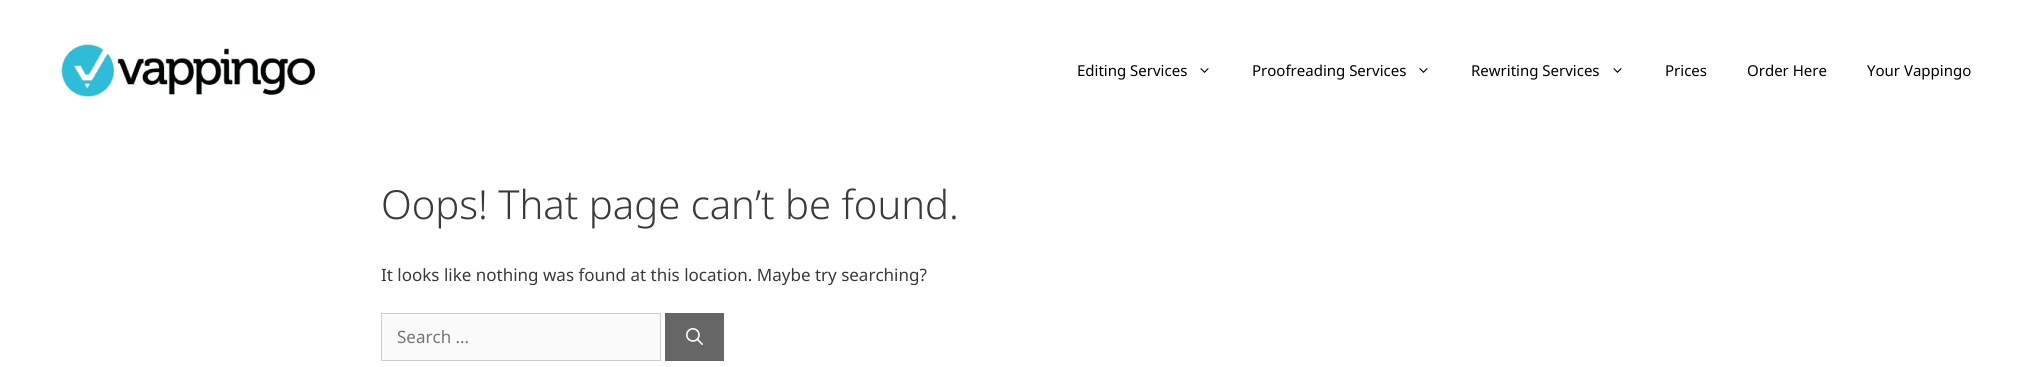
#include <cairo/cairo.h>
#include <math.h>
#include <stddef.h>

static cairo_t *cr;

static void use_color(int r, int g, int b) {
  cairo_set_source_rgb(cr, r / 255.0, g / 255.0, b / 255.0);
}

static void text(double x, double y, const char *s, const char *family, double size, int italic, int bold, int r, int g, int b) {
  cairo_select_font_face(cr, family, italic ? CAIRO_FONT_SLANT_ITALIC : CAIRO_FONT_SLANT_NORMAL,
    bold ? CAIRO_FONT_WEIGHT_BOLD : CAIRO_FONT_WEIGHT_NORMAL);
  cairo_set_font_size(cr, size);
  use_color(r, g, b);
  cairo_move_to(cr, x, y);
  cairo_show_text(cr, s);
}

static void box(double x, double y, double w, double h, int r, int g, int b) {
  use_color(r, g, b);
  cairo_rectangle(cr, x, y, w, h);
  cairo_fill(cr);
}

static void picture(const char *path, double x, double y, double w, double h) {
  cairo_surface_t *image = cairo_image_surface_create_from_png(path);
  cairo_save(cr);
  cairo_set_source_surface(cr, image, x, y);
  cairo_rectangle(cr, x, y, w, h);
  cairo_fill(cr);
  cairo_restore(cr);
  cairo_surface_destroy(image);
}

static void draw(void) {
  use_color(255, 255, 255);
  cairo_paint(cr);
  picture("img_01.png", 61, 44, 254, 53);
  picture("img_02.png", 1200, 68, 9, 5);
  picture("img_02.png", 1419, 68, 9, 5);
  picture("img_02.png", 1613, 68, 9, 5);
  use_color(250, 250, 250);
  cairo_rectangle(cr, 381.5, 313.5, 279, 47);
  cairo_fill_preserve(cr);
  use_color(204, 204, 204);
  cairo_set_line_width(cr, 1);
  cairo_stroke(cr);
  box(665, 313, 59, 48, 102, 102, 102);
  picture("img_03.png", 686, 328, 17, 17);
  text(1077, 76, "Editing Services", "Noto Sans", 15, 0, 0, 0, 0, 0);
  text(1252, 76, "Proofreading Services", "Noto Sans", 15, 0, 0, 0, 0, 0);
  text(1471, 76, "Rewriting Services", "Noto Sans", 15, 0, 0, 0, 0, 0);
  text(1665, 76, "Prices", "Noto Sans", 15, 0, 0, 0, 0, 0);
  text(1747, 76, "Order Here", "Noto Sans", 15, 0, 0, 0, 0, 0);
  text(1867, 76, "Your Vappingo", "Noto Sans", 15, 0, 0, 0, 0, 0);
  text(381, 219, "Oops! That page can’t be found.", "Noto Sans Light", 40, 0, 0, 58, 58, 58);
  text(381, 281, "It looks like nothing was found at this location. Maybe try searching?", "Noto Sans", 17, 0, 0, 58, 58, 58);
  text(397, 343, "Search …", "Noto Sans", 17, 0, 0, 117, 117, 117);
}

int main(void) {
  cairo_surface_t *surface = cairo_image_surface_create(CAIRO_FORMAT_RGB24, 2031, 367);
  cr = cairo_create(surface);
  cairo_font_options_t *options = cairo_font_options_create();
  cairo_font_options_set_hint_metrics(options, CAIRO_HINT_METRICS_OFF);
  cairo_font_options_set_hint_style(options, CAIRO_HINT_STYLE_NONE);
  cairo_set_font_options(cr, options);
  cairo_set_miter_limit(cr, 4);
  draw();
  cairo_surface_write_to_png(surface, "out.png");
  cairo_font_options_destroy(options);
  cairo_destroy(cr);
  cairo_surface_destroy(surface);
  return 0;
}
